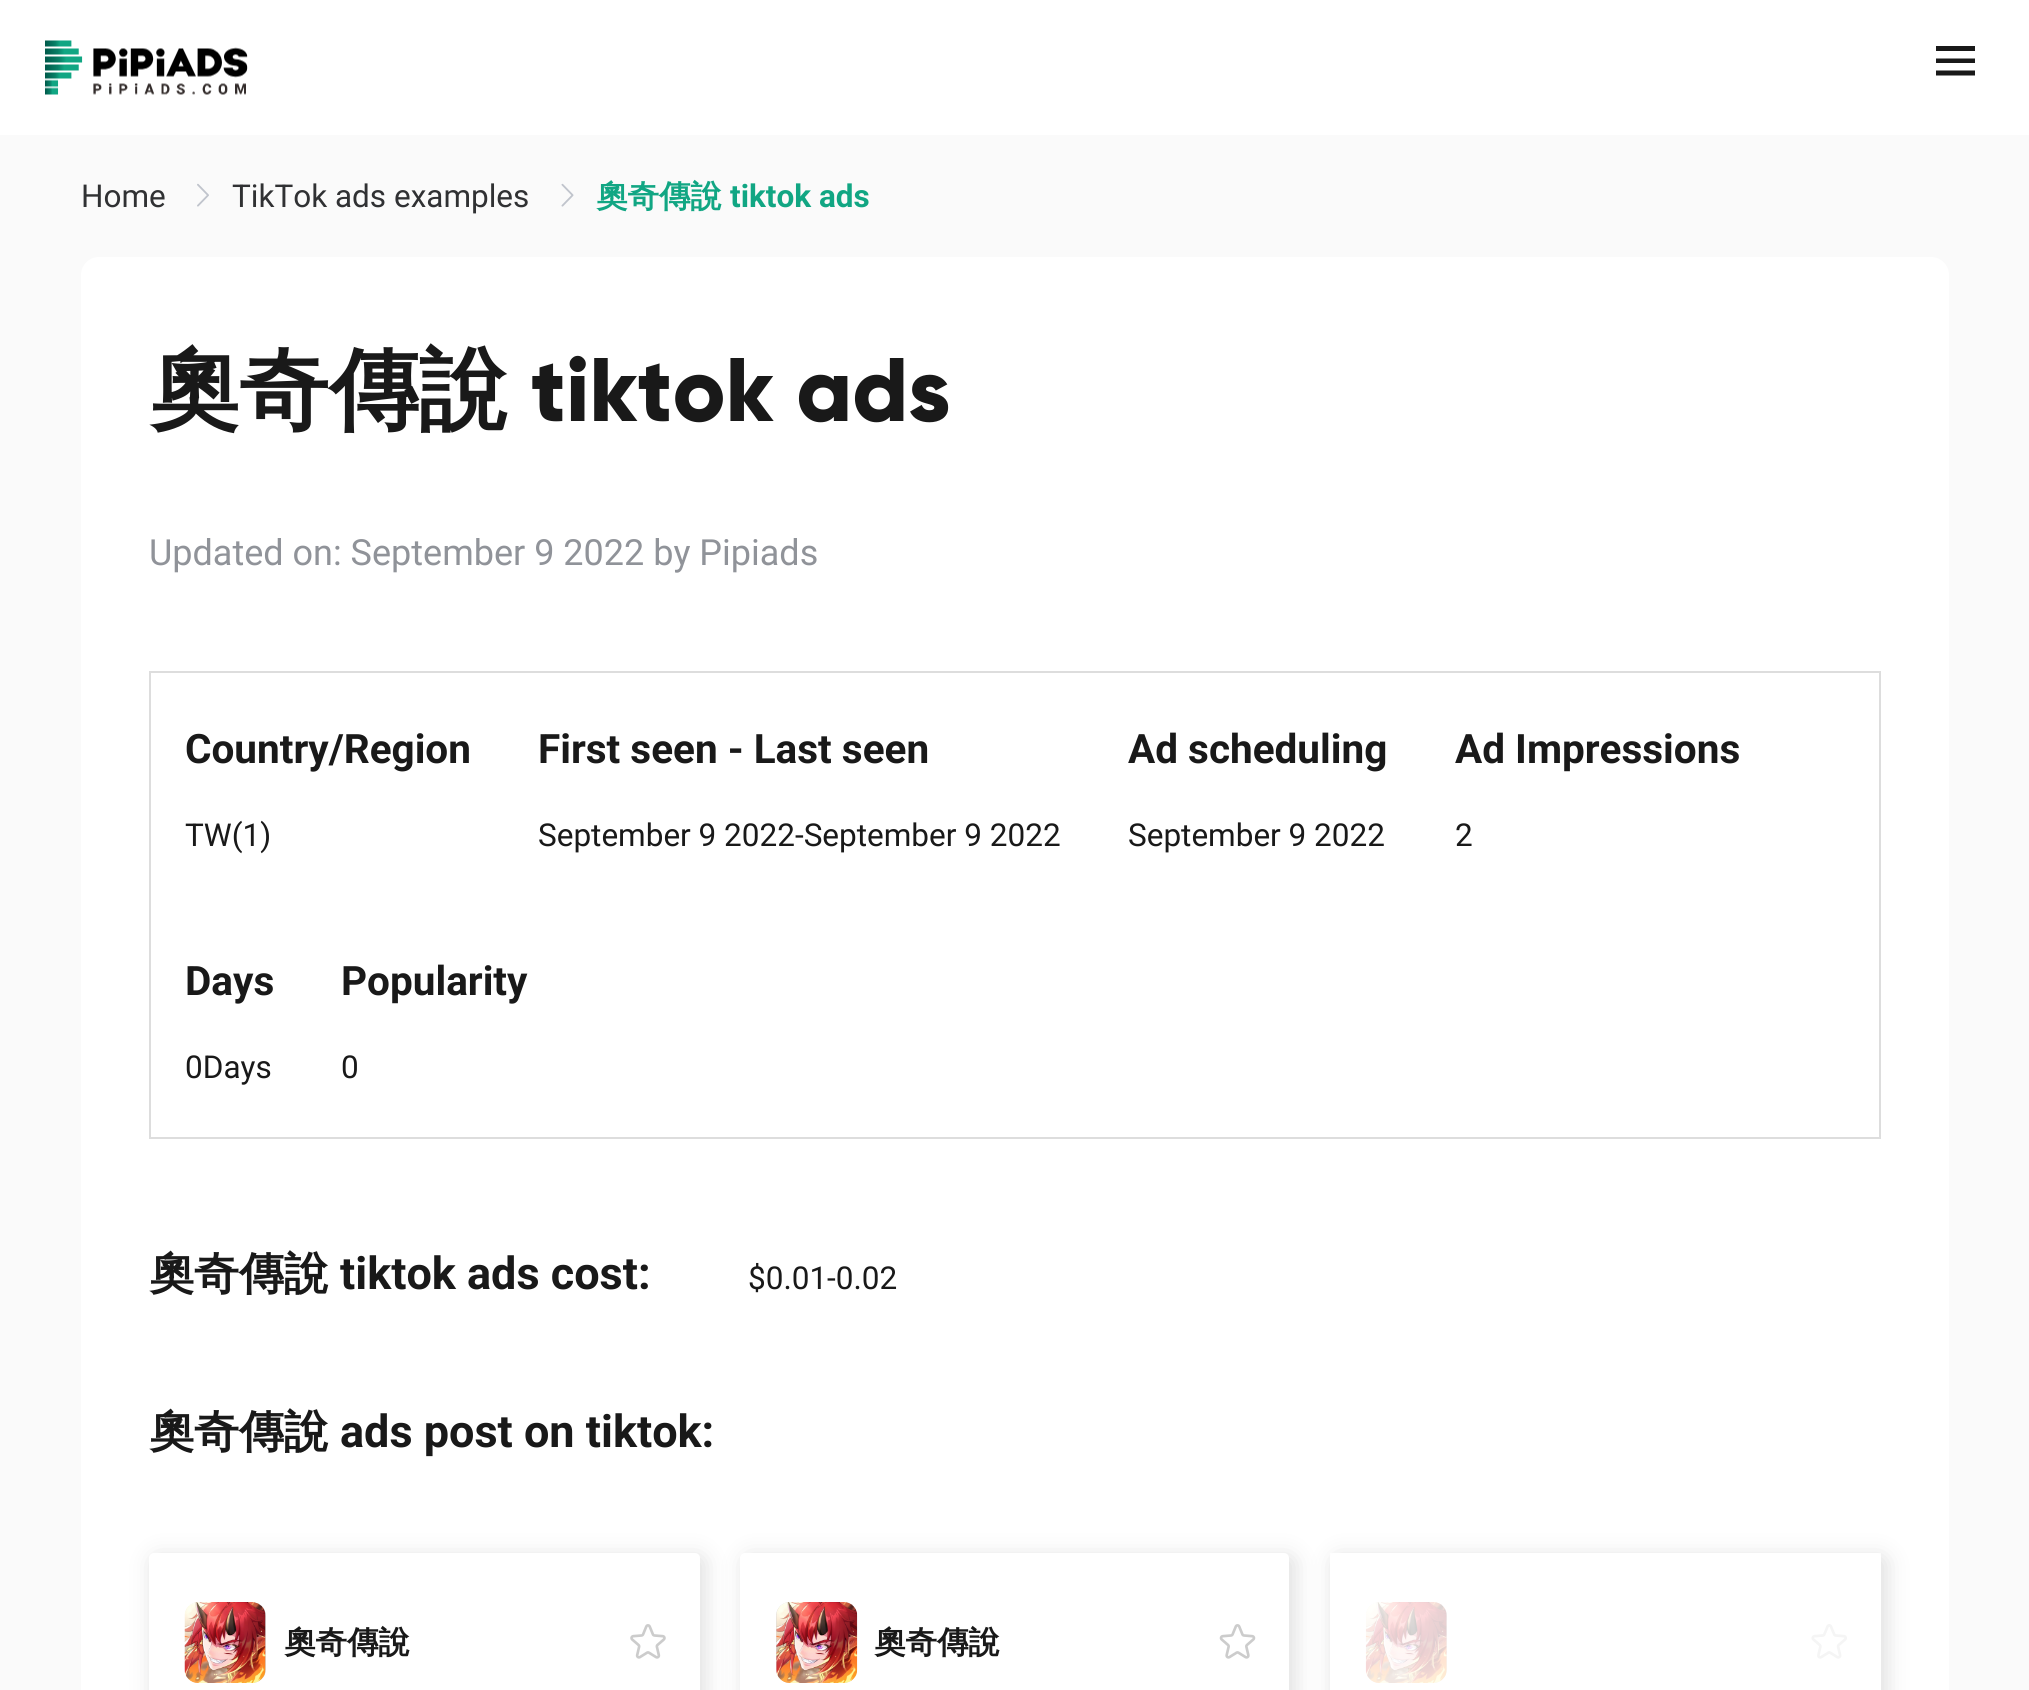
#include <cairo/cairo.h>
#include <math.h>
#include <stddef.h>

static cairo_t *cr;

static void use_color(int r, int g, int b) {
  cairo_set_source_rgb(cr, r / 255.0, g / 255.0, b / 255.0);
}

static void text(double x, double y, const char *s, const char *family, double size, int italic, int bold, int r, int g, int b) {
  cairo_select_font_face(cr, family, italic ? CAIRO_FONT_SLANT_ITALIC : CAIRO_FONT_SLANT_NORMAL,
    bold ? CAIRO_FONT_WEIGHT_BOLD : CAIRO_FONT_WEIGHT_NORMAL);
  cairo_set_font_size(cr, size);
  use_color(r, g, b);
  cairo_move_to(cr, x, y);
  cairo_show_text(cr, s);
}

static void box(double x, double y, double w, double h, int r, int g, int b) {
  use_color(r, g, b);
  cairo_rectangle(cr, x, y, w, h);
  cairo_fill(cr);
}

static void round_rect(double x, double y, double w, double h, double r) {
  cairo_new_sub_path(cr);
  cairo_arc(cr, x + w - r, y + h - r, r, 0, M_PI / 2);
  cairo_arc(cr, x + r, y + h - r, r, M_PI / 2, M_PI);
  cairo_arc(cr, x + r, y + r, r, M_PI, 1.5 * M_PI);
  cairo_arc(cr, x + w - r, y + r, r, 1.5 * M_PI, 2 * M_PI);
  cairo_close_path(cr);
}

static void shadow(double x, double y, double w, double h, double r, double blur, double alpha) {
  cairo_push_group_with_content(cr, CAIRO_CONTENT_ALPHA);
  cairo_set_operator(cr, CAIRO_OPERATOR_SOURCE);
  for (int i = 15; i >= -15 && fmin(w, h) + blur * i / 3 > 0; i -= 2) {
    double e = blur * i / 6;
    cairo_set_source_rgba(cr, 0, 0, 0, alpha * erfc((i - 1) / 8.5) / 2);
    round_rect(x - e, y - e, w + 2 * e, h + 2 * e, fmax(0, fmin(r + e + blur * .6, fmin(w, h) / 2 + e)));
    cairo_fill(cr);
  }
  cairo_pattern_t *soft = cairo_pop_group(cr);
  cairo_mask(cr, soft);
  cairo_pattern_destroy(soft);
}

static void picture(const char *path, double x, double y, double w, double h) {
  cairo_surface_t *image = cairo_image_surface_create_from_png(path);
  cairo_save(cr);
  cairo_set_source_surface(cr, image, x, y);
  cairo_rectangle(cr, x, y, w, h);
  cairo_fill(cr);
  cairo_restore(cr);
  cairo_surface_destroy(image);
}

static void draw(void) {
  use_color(255, 255, 255);
  cairo_paint(cr);
  picture("img_01.png", 45, 40, 203, 55);
  use_color(25, 25, 25);
  cairo_new_path(cr);
  cairo_move_to(cr, 1936, 46);
  cairo_line_to(cr, 1975, 46);
  cairo_line_to(cr, 1975, 51);
  cairo_line_to(cr, 1936, 51);
  cairo_close_path(cr);
  cairo_move_to(cr, 1936, 58.5);
  cairo_line_to(cr, 1975, 58.5);
  cairo_line_to(cr, 1975, 63);
  cairo_line_to(cr, 1936, 63);
  cairo_close_path(cr);
  cairo_move_to(cr, 1936, 70.5);
  cairo_line_to(cr, 1975, 70.5);
  cairo_line_to(cr, 1975, 75.5);
  cairo_line_to(cr, 1936, 75.5);
  cairo_close_path(cr);
  cairo_fill(cr);
  box(0, 135, 2029, 1555, 250, 250, 250);
  picture("img_02.png", 197, 183, 12, 24);
  picture("img_03.png", 561, 183, 13, 24);
  use_color(255, 255, 255);
  round_rect(81, 257, 1868, 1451, 18);
  cairo_fill(cr);
  cairo_rectangle(cr, 150, 672, 1730, 466);
  use_color(221, 221, 221);
  cairo_stroke(cr);
  use_color(221, 221, 221);
  shadow(153, 1557, 551, 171, 5, 11, 1);
  use_color(255, 255, 255);
  round_rect(149, 1553, 551, 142, 5);
  cairo_fill(cr);
  use_color(216, 216, 216);
  round_rect(185, 1602, 81, 81, 14);
  cairo_fill(cr);
  picture("img_04.png", 184, 1602, 82, 81);
  picture("img_05.png", 630, 1624, 36, 35);
  use_color(221, 221, 221);
  shadow(745, 1557, 549, 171, 5, 11, 1);
  use_color(255, 255, 255);
  round_rect(740, 1553, 549, 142, 5);
  cairo_fill(cr);
  use_color(216, 216, 216);
  round_rect(776, 1602, 81, 81, 14);
  cairo_fill(cr);
  picture("img_06.png", 776, 1602, 82, 81);
  picture("img_07.png", 1219, 1624, 37, 35);
  cairo_save(cr);
  cairo_set_fill_rule(cr, CAIRO_FILL_RULE_EVEN_ODD);
  cairo_new_path(cr);
  cairo_move_to(cr, 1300, 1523);
  cairo_line_to(cr, 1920, 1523);
  cairo_line_to(cr, 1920, 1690);
  cairo_line_to(cr, 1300, 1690);
  cairo_close_path(cr);
  cairo_move_to(cr, 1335, 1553);
  cairo_line_to(cr, 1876, 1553);
  cairo_curve_to(cr, 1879, 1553, 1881, 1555, 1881, 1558);
  cairo_line_to(cr, 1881, 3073);
  cairo_curve_to(cr, 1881, 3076, 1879, 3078, 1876, 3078);
  cairo_line_to(cr, 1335, 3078);
  cairo_curve_to(cr, 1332, 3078, 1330, 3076, 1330, 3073);
  cairo_line_to(cr, 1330, 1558);
  cairo_curve_to(cr, 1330, 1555, 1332, 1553, 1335, 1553);
  cairo_close_path(cr);
  cairo_clip(cr);
  use_color(221, 221, 221);
  shadow(1334, 1557, 552, 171, 5, 11, 1);
  cairo_restore(cr);
  round_rect(1366, 1602, 81, 81, 14);
  cairo_fill(cr);
  picture("img_08.png", 1365, 1602, 82, 81);
  picture("img_09.png", 1811, 1624, 36, 35);
  cairo_set_source_rgba(cr, 1, 1, 1, 0.8);
  cairo_rectangle(cr, 1330, 1553, 551, 130);
  cairo_fill(cr);
  text(81, 207, "Home", "Roboto", 31.5, 0, 0, 48, 49, 51);
  text(232, 207, "TikTok ads examples", "Roboto", 31.5, 0, 0, 48, 49, 51);
  text(596, 207, "奧奇傳說", "WenQuanYi Zen Hei", 31.5, 0, 1, 17, 166, 131);
  text(730, 207, "tiktok ads", "Roboto", 31.5, 0, 1, 17, 166, 131);
  text(149, 421, "奧奇傳說", "WenQuanYi Zen Hei", 90, 0, 1, 25, 25, 25);
  text(531, 421, "tiktok ads", "Gilroy ExtraBold", 90, 0, 0, 25, 25, 25);
  text(149, 565, "Updated on: September 9 2022 by Pipiads", "Roboto", 36, 0, 0, 144, 147, 153);
  text(185, 763, "Country/Region", "Roboto", 40.5, 0, 1, 25, 25, 25);
  text(185, 846, "TW(1)", "Roboto", 31.5, 0, 0, 25, 25, 25);
  text(538, 763, "First seen - Last seen", "Roboto", 40.5, 0, 1, 25, 25, 25);
  text(538, 846, "September 9 2022-September 9 2022", "Roboto", 31.5, 0, 0, 25, 25, 25);
  text(1128, 763, "Ad scheduling", "Roboto", 40.5, 0, 1, 25, 25, 25);
  text(1128, 846, "September 9 2022", "Roboto", 31.5, 0, 0, 25, 25, 25);
  text(1455, 763, "Ad Impressions", "Roboto", 40.5, 0, 1, 25, 25, 25);
  text(1455, 846, "2", "Roboto", 31.5, 0, 0, 25, 25, 25);
  text(185, 995, "Days", "Roboto", 40.5, 0, 1, 25, 25, 25);
  text(185, 1078, "0Days", "Roboto", 31.5, 0, 0, 25, 25, 25);
  text(341, 995, "Popularity", "Roboto", 40.5, 0, 1, 25, 25, 25);
  text(341, 1078, "0", "Roboto", 31.5, 0, 0, 25, 25, 25);
  text(149, 1289, "奧奇傳說", "WenQuanYi Zen Hei", 45, 0, 1, 25, 25, 25);
  text(340, 1289, "tiktok ads cost:", "Roboto", 45, 0, 1, 25, 25, 25);
  text(748, 1289, "$0.01-0.02", "Roboto", 31.5, 0, 0, 25, 25, 25);
  text(149, 1447, "奧奇傳說", "WenQuanYi Zen Hei", 45, 0, 1, 25, 25, 25);
  text(340, 1447, "ads post on tiktok:", "Roboto", 45, 0, 1, 25, 25, 25);
  text(284, 1653, "奧奇傳說", "WenQuanYi Zen Hei", 31.5, 0, 1, 25, 25, 25);
  text(874, 1653, "奧奇傳說", "WenQuanYi Zen Hei", 31.5, 0, 1, 25, 25, 25);
}

int main(void) {
  cairo_surface_t *surface = cairo_image_surface_create(CAIRO_FORMAT_RGB24, 2029, 1690);
  cr = cairo_create(surface);
  cairo_font_options_t *options = cairo_font_options_create();
  cairo_font_options_set_hint_metrics(options, CAIRO_HINT_METRICS_OFF);
  cairo_font_options_set_hint_style(options, CAIRO_HINT_STYLE_NONE);
  cairo_set_font_options(cr, options);
  cairo_set_miter_limit(cr, 4);
  draw();
  cairo_surface_write_to_png(surface, "out.png");
  cairo_font_options_destroy(options);
  cairo_destroy(cr);
  cairo_surface_destroy(surface);
  return 0;
}
